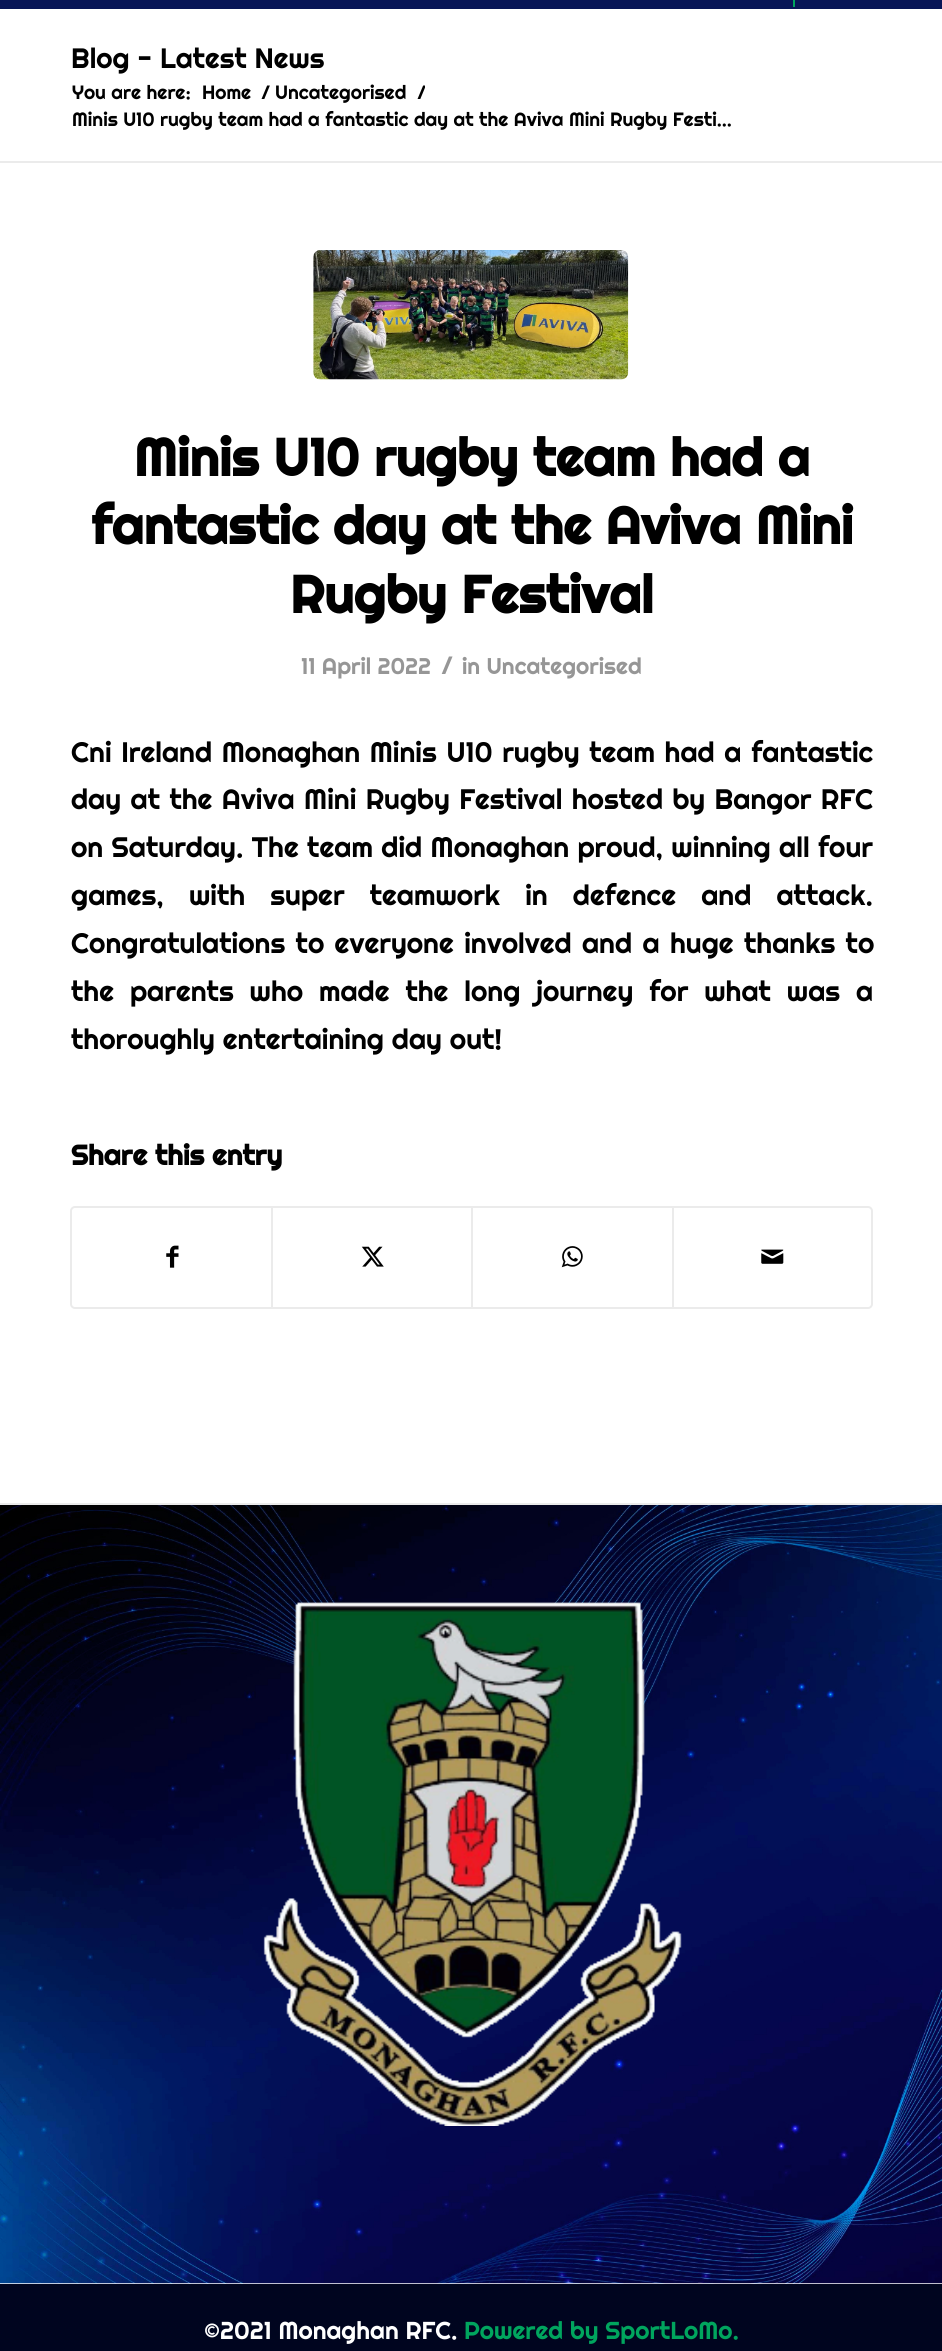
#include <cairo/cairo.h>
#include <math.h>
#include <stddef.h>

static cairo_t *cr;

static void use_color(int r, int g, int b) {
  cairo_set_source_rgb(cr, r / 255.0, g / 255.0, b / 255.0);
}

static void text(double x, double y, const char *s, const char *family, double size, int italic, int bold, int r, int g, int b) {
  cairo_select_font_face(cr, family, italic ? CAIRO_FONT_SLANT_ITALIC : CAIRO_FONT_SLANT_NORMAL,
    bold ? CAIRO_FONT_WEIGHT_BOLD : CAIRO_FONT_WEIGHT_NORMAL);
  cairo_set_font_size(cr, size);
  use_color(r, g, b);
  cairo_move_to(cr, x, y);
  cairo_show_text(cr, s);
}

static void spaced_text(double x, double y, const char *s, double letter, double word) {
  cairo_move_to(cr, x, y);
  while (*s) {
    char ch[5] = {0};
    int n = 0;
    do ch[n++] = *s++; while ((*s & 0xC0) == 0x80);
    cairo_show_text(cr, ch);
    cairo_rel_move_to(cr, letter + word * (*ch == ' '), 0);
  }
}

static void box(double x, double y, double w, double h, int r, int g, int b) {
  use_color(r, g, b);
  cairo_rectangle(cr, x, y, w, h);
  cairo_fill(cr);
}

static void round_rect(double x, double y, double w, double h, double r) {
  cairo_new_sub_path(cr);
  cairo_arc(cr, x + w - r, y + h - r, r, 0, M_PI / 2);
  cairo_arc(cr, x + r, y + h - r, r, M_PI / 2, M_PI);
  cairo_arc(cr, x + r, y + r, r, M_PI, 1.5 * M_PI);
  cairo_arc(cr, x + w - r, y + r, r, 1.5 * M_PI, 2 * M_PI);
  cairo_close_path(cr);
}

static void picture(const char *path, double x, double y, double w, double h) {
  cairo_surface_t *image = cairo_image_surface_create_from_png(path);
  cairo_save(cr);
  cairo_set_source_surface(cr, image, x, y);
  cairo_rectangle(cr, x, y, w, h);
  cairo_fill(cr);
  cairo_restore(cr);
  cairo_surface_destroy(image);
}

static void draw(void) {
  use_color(0, 5, 31);
  cairo_paint(cr);
  box(0, 0, 942, 9, 8, 22, 87);
  box(793, 0, 2, 7, 0, 165, 94);
  box(0, 9, 942, 152, 255, 255, 255);
  box(0, 163, 942, 1340, 255, 255, 255);
  box(0, 161, 942, 2, 235, 235, 235);
  picture("img_01.png", 313, 250, 316, 130);
  round_rect(71, 1207, 801, 101, 4);
  cairo_stroke(cr);
  picture("img_02.png", 166, 1245, 13, 23);
  box(271, 1208, 2, 99, 235, 235, 235);
  picture("img_03.png", 361, 1246, 23, 21);
  box(471, 1208, 2, 99, 235, 235, 235);
  picture("img_04.png", 561, 1246, 22, 22);
  box(672, 1208, 2, 99, 235, 235, 235);
  picture("img_05.png", 761, 1249, 23, 15);
  box(0, 2283, 942, 1, 255, 255, 255);
  picture("img_06.png", 0, 1505, 942, 779);
  box(0, 1503, 942, 2, 235, 235, 235);
  picture("img_07.png", 263, 1602, 419, 524);
  text(71, 68, "Blog - Latest News", "Righteous", 28, 0, 0, 0, 0, 0);
  text(72, 99, "You are here:", "Righteous", 19.25, 0, 0, 0, 0, 0);
  text(202, 99, "Home", "Righteous", 19.25, 0, 0, 0, 0, 0);
  text(261, 99, "/", "Righteous", 19.25, 0, 0, 0, 0, 0);
  text(275, 99, "Uncategorised", "Righteous", 19.25, 0, 0, 0, 0, 0);
  cairo_save(cr);
  cairo_rectangle(cr, 411, 81, 14, 26);
  cairo_clip(cr);
  text(417, 99, "/", "Righteous", 19.25, 0, 0, 0, 0, 0);
  cairo_restore(cr);
  text(72, 126, "Minis U10 rugby team had a fantastic day at the Aviva Mini Rugby Festi...", "Righteous", 19.25, 0, 0, 0, 0, 0);
  text(134, 476, "Minis U10 rugby team had a", "Righteous", 52.5, 0, 1, 0, 0, 0);
  text(91, 544, "fantastic day at the Aviva Mini", "Righteous", 52.5, 0, 1, 0, 0, 0);
  text(290, 613, "Rugby Festival", "Righteous", 52.5, 0, 1, 0, 0, 0);
  text(301, 674, "11 April 2022", "Righteous", 22.75, 0, 0, 150, 150, 150);
  text(441, 674, "/", "Righteous", 25, 0, 0, 150, 150, 150);
  text(462, 674, "in Uncategorised", "Righteous", 22.75, 0, 0, 150, 150, 150);
  cairo_set_font_size(cr, 28.2);
  use_color(0, 0, 0);
  spaced_text(71, 762, "Cni Ireland Monaghan Minis U10 rugby team had a fantastic", 0, 1.75);
  spaced_text(71, 809, "day at the Aviva Mini Rugby Festival hosted by Bangor RFC", 0, 1.5);
  spaced_text(71, 857, "on Saturday. The team did Monaghan proud, winning all four", 0, 0.5);
  spaced_text(71, 905, "games, with super teamwork in defence and attack.", 0, 17.25);
  spaced_text(71, 953, "Congratulations to everyone involved and a huge thanks to", 0, 2.5);
  spaced_text(71, 1001, "the parents who made the long journey for what was a", 0, 8);
  text(71, 1049, "thoroughly entertaining day out!", "Righteous", 28.2, 0, 0, 0, 0, 0);
  text(71, 1165, "Share this entry", "Righteous", 28, 0, 1, 0, 0, 0);
  text(204, 2339, "©2021 Monaghan RFC.", "Righteous", 24.5, 0, 0, 255, 255, 255);
  text(464, 2339, "Powered by SportLoMo.", "Righteous", 24.5, 0, 0, 0, 165, 94);
}

int main(void) {
  cairo_surface_t *surface = cairo_image_surface_create(CAIRO_FORMAT_RGB24, 942, 2351);
  cr = cairo_create(surface);
  cairo_font_options_t *options = cairo_font_options_create();
  cairo_font_options_set_hint_metrics(options, CAIRO_HINT_METRICS_OFF);
  cairo_font_options_set_hint_style(options, CAIRO_HINT_STYLE_NONE);
  cairo_set_font_options(cr, options);
  cairo_set_miter_limit(cr, 4);
  draw();
  cairo_surface_write_to_png(surface, "out.png");
  cairo_font_options_destroy(options);
  cairo_destroy(cr);
  cairo_surface_destroy(surface);
  return 0;
}
